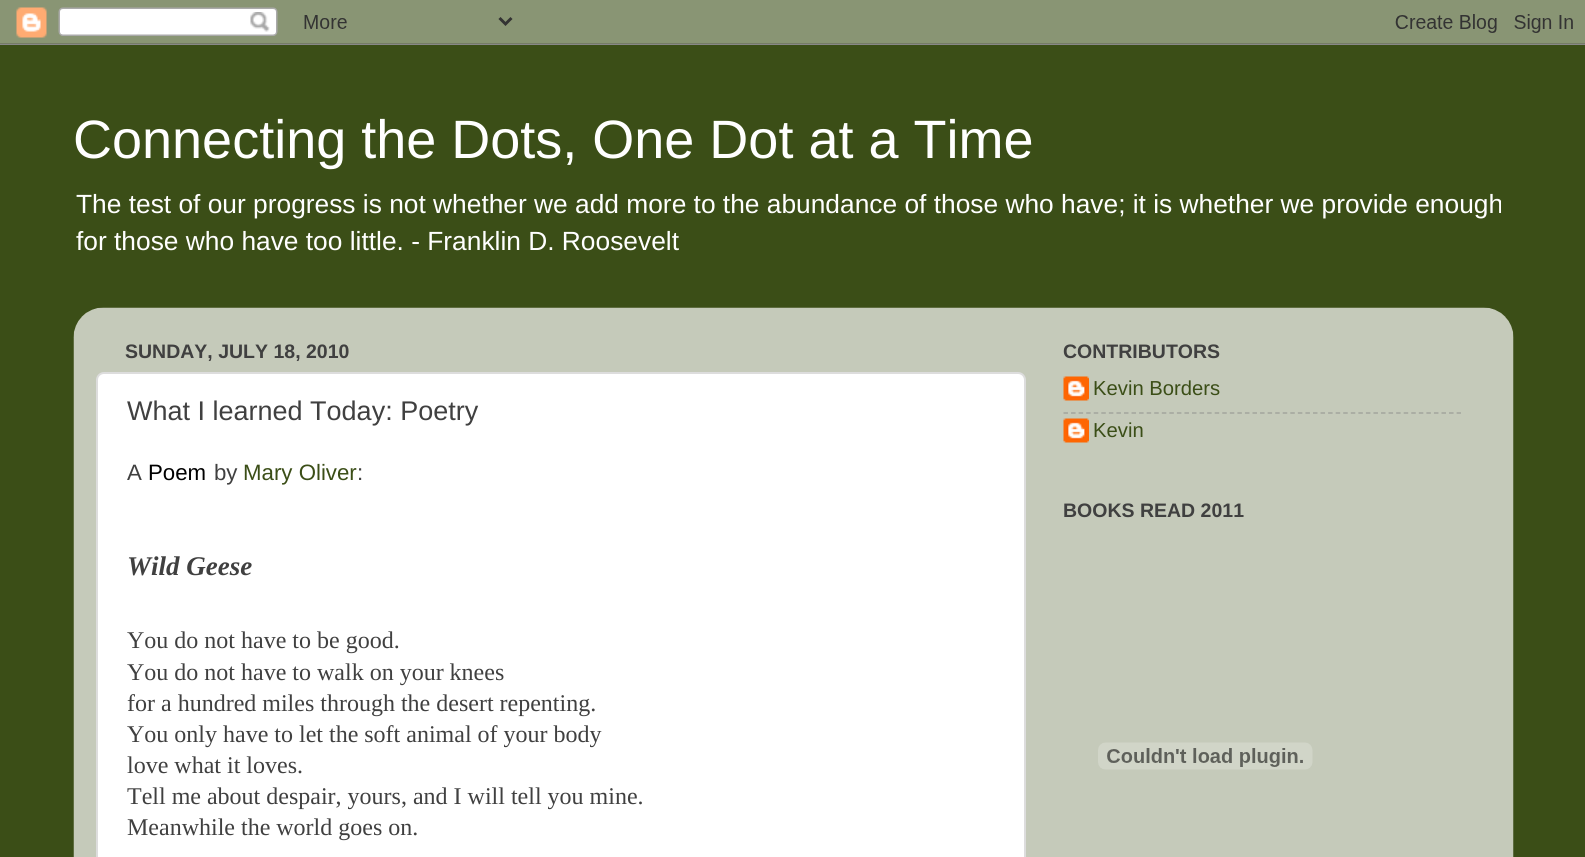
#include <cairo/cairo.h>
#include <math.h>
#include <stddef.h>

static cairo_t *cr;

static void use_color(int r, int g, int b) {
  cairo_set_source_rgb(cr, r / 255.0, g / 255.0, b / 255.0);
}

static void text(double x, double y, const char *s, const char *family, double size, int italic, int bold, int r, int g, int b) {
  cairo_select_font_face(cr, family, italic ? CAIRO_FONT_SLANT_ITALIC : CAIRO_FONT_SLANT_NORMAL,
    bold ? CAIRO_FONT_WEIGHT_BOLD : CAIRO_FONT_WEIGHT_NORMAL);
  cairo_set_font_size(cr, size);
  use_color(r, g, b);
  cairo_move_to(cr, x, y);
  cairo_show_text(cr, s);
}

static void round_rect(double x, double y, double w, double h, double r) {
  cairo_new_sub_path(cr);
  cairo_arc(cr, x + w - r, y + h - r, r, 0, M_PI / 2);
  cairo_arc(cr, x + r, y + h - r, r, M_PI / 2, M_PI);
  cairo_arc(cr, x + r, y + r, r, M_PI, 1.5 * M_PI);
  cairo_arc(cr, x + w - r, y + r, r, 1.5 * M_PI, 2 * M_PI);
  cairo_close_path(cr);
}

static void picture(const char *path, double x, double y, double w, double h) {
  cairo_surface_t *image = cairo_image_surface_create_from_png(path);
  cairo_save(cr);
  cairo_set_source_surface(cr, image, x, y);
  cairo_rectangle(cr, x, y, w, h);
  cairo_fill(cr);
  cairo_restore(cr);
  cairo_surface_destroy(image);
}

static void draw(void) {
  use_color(59, 78, 23);
  cairo_paint(cr);
  picture("img_01.png", 0, 0, 1585, 45);
  picture("img_02.png", 73, 307, 1441, 550);
  use_color(255, 255, 255);
  round_rect(97, 373, 928, 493, 7);
  cairo_fill_preserve(cr);
  use_color(221, 221, 221);
  cairo_stroke(cr);
  picture("img_03.png", 1063, 376, 26, 25);
  cairo_new_path(cr);
  cairo_move_to(cr, 1063.5, 413);
  cairo_line_to(cr, 1461, 413);
  use_color(162, 165, 157);
  cairo_set_line_width(cr, 1.5);
  cairo_set_dash(cr, (double[]){4.5, 3.06}, 2, 0);
  cairo_stroke(cr);
  picture("img_03.png", 1063, 418, 26, 25);
  picture("img_04.png", 1098, 742, 215, 28);
  text(73, 158, "Connecting the Dots, One Dot at a Time", "Liberation Sans", 54, 0, 0, 255, 255, 255);
  text(76, 213, "The test of our progress is not whether we add more to the abundance of those who have; it is whether we provide enough", "Liberation Sans", 26.33, 0, 0, 255, 255, 255);
  text(76, 250, "for those who have too little. - Franklin D. Roosevelt", "Liberation Sans", 26.33, 0, 0, 255, 255, 255);
  text(125, 358, "SUNDAY, JULY 18, 2010", "Liberation Sans", 19.5, 0, 1, 64, 64, 64);
  text(127, 420, "What I learned Today: Poetry", "Liberation Sans", 27, 0, 0, 64, 64, 64);
  text(127, 480, "A", "Liberation Sans", 22.25, 0, 0, 64, 64, 64);
  text(148, 480, "Poem", "Liberation Sans", 22.25, 0, 0, 0, 0, 0);
  text(214, 480, "by", "Liberation Sans", 22.25, 0, 0, 64, 64, 64);
  text(243, 480, "Mary Oliver", "Liberation Sans", 22.25, 0, 0, 59, 78, 23);
  text(357, 480, ":", "Liberation Sans", 22.25, 0, 0, 64, 64, 64);
  text(127, 575, "Wild Geese", "Liberation Serif", 27, 1, 1, 64, 64, 64);
  text(127, 648, "You do not have to be good.", "Liberation Serif", 24, 0, 0, 64, 64, 64);
  text(127, 680, "You do not have to walk on your knees", "Liberation Serif", 24, 0, 0, 64, 64, 64);
  text(127, 711, "for a hundred miles through the desert repenting.", "Liberation Serif", 24, 0, 0, 64, 64, 64);
  text(127, 742, "You only have to let the soft animal of your body", "Liberation Serif", 24, 0, 0, 64, 64, 64);
  text(127, 773, "love what it loves.", "Liberation Serif", 24, 0, 0, 64, 64, 64);
  text(127, 804, "Tell me about despair, yours, and I will tell you mine.", "Liberation Serif", 24, 0, 0, 64, 64, 64);
  text(127, 835, "Meanwhile the world goes on.", "Liberation Serif", 24, 0, 0, 64, 64, 64);
  text(1063, 358, "CONTRIBUTORS", "Liberation Sans", 19.5, 0, 1, 64, 64, 64);
  text(1093, 395, "Kevin Borders", "Liberation Sans", 20.25, 0, 0, 59, 78, 23);
  text(1093, 437, "Kevin", "Liberation Sans", 20.25, 0, 0, 59, 78, 23);
  text(1063, 517, "BOOKS READ 2011", "Liberation Sans", 19.5, 0, 1, 64, 64, 64);
}

int main(void) {
  cairo_surface_t *surface = cairo_image_surface_create(CAIRO_FORMAT_RGB24, 1585, 857);
  cr = cairo_create(surface);
  cairo_font_options_t *options = cairo_font_options_create();
  cairo_font_options_set_hint_metrics(options, CAIRO_HINT_METRICS_OFF);
  cairo_font_options_set_hint_style(options, CAIRO_HINT_STYLE_NONE);
  cairo_set_font_options(cr, options);
  cairo_set_miter_limit(cr, 4);
  draw();
  cairo_surface_write_to_png(surface, "out.png");
  cairo_font_options_destroy(options);
  cairo_destroy(cr);
  cairo_surface_destroy(surface);
  return 0;
}
